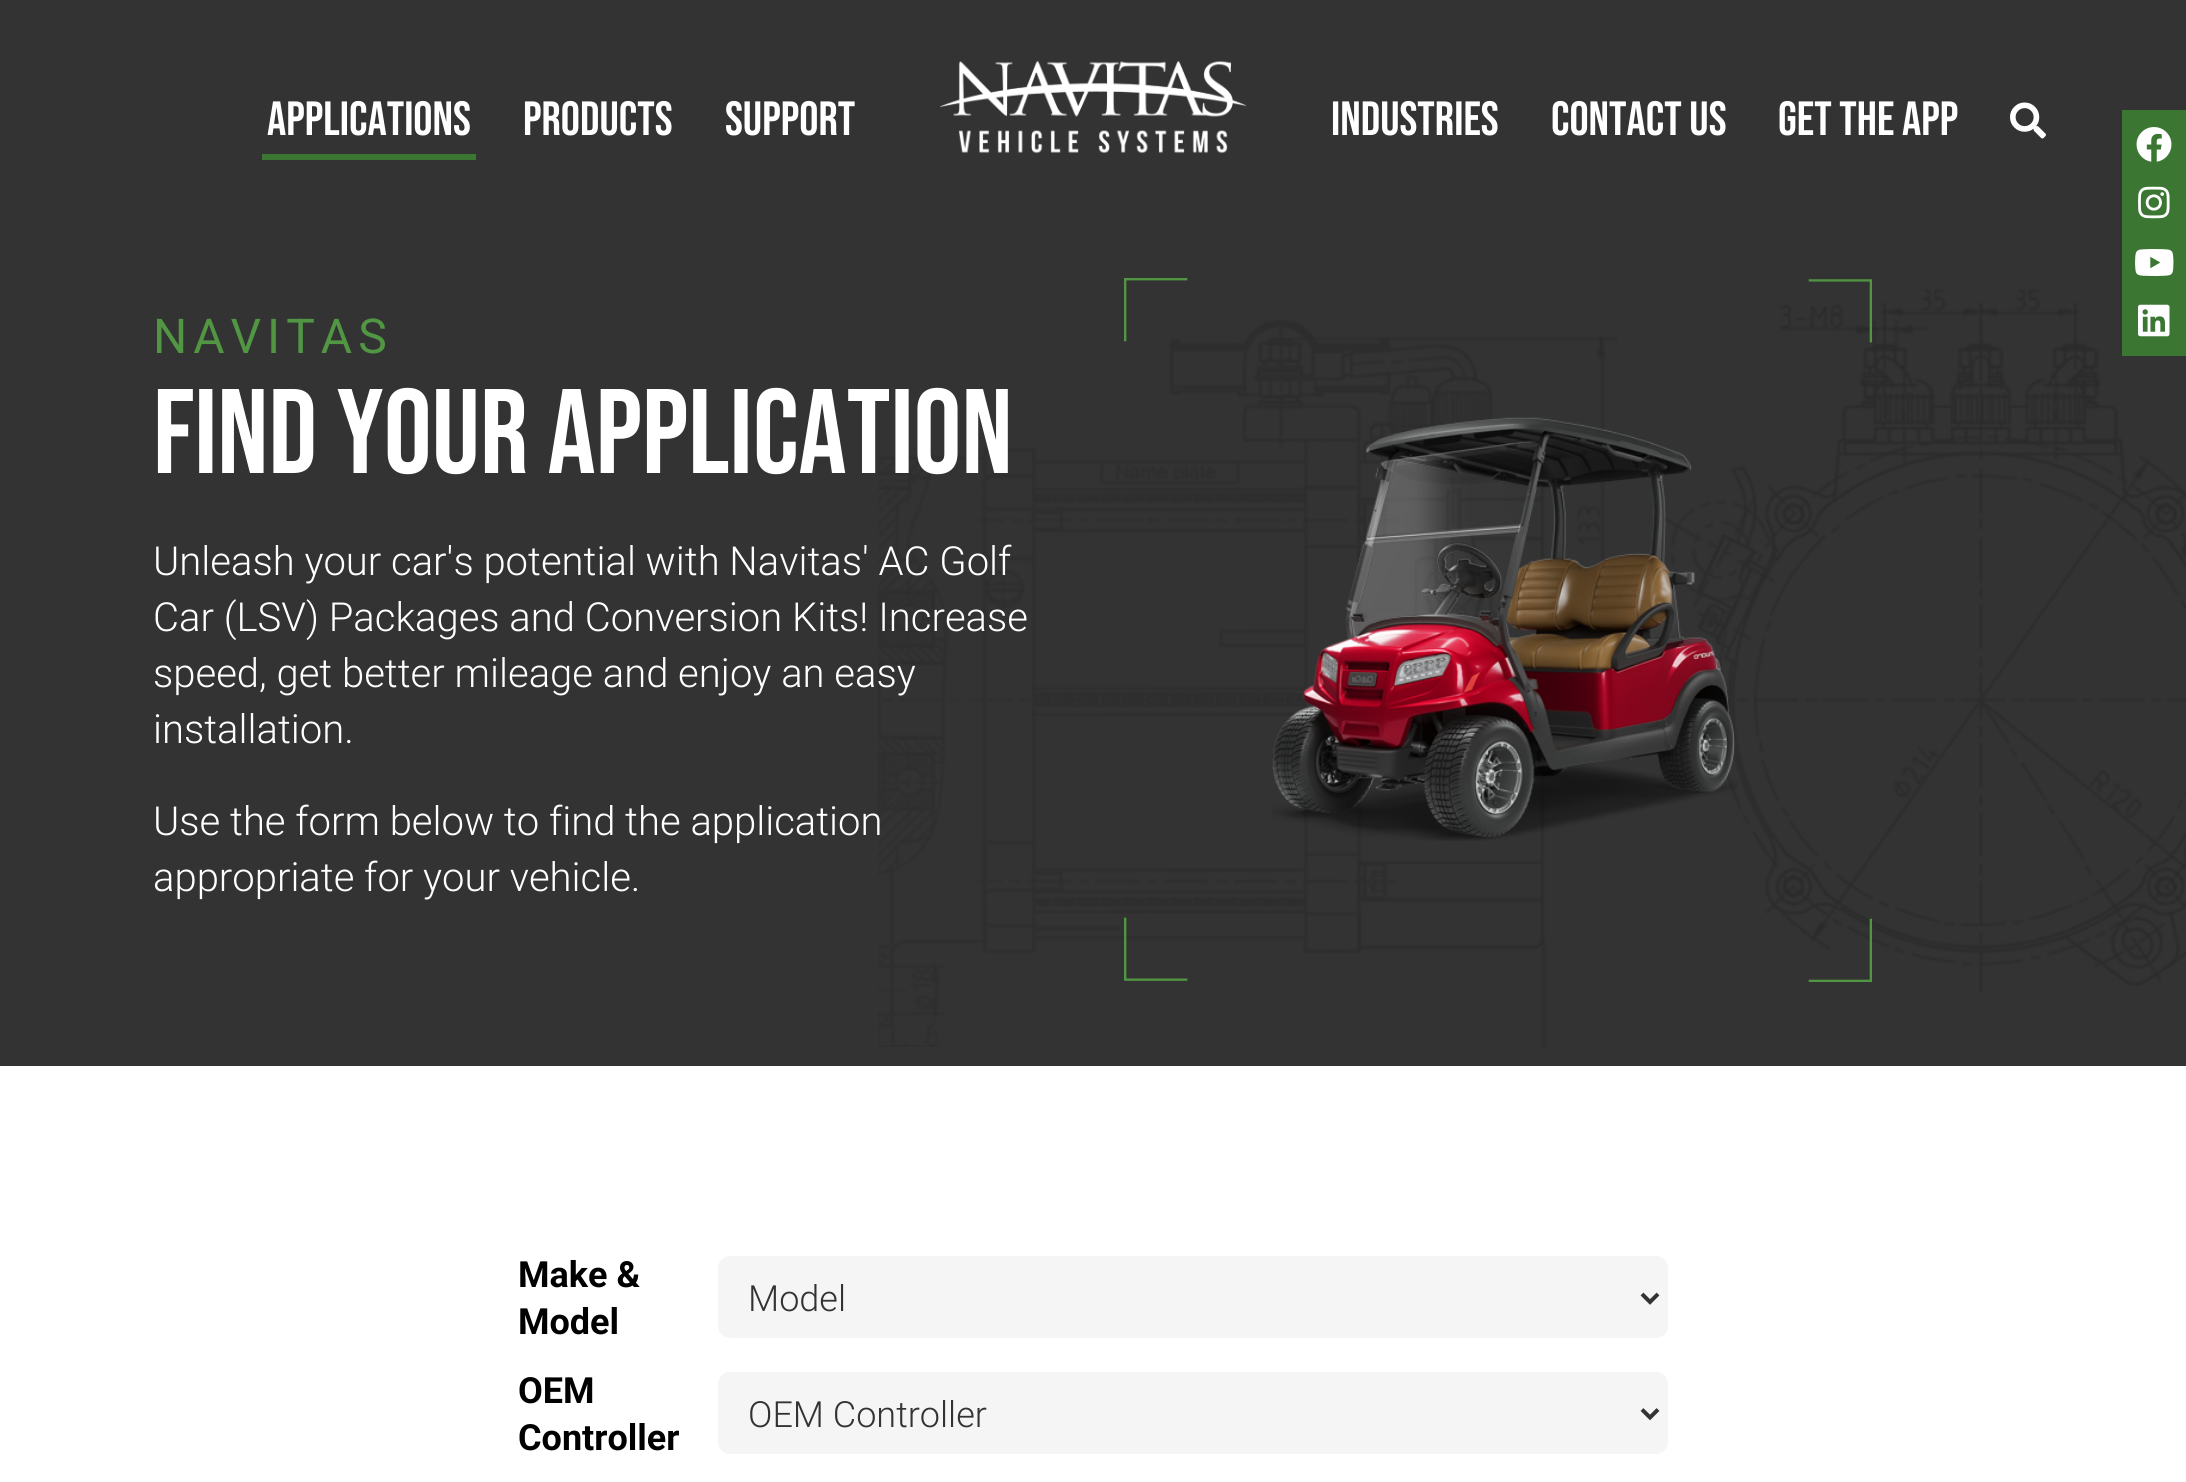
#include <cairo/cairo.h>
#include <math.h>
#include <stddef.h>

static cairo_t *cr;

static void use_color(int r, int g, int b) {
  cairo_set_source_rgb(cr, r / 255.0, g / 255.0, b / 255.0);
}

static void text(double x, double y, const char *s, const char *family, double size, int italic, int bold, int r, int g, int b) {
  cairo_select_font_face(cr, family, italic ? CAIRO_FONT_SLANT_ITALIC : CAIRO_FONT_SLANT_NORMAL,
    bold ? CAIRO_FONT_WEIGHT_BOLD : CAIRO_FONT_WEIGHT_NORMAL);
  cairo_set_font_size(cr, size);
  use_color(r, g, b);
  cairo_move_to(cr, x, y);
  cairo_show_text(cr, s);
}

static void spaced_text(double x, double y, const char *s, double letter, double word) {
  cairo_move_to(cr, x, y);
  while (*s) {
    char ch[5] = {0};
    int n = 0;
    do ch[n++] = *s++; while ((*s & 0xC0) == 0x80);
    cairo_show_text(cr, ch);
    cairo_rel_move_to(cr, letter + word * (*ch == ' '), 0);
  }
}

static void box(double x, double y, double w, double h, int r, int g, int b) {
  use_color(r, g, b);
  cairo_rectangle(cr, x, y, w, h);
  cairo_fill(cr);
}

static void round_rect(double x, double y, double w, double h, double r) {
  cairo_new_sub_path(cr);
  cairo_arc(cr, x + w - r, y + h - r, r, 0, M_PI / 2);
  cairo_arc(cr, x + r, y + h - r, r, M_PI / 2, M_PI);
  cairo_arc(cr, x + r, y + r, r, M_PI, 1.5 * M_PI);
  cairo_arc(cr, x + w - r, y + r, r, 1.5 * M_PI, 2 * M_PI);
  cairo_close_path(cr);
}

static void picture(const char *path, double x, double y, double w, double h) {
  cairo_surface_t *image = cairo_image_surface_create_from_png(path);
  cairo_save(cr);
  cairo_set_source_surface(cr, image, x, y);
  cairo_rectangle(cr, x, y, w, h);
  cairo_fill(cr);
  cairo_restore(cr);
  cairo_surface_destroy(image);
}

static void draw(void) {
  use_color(255, 255, 255);
  cairo_paint(cr);
  box(0, 0, 2186, 1066, 51, 51, 51);
  box(262, 154, 214, 6, 59, 119, 51);
  picture("img_01.png", 940, 60, 306, 94);
  picture("img_02.png", 2010, 102, 36, 37);
  picture("img_03.png", 878, 289, 1308, 758);
  picture("img_04.png", 1124, 278, 748, 704);
  picture("img_05.png", 1272, 417, 466, 424);
  use_color(245, 245, 245);
  round_rect(718, 1256, 950, 82, 12);
  cairo_fill(cr);
  cairo_new_path(cr);
  cairo_move_to(cr, 1642, 1294);
  cairo_line_to(cr, 1650, 1302);
  cairo_line_to(cr, 1658, 1294);
  use_color(51, 51, 51);
  cairo_set_line_width(cr, 4);
  cairo_stroke(cr);
  use_color(245, 245, 245);
  round_rect(718, 1372, 950, 82, 12);
  cairo_fill(cr);
  cairo_new_path(cr);
  cairo_move_to(cr, 1642, 1409.5);
  cairo_line_to(cr, 1650, 1417.5);
  cairo_line_to(cr, 1658, 1409.5);
  use_color(51, 51, 51);
  cairo_stroke(cr);
  box(2122, 110, 64, 246, 59, 119, 51);
  picture("img_06.png", 2136, 127, 36, 35);
  picture("img_07.png", 2138, 186, 32, 33);
  picture("img_08.png", 2135, 249, 39, 27);
  picture("img_09.png", 2138, 304, 32, 33);
  text(267, 135, "Applications", "Bebas Neue", 48, 0, 0, 255, 255, 255);
  text(523, 135, "Products", "Bebas Neue", 48, 0, 0, 255, 255, 255);
  text(725, 135, "Support", "Bebas Neue", 48, 0, 0, 255, 255, 255);
  text(1331, 135, "Industries", "Bebas Neue", 48, 0, 0, 255, 255, 255);
  text(1551, 135, "Contact Us", "Bebas Neue", 48, 0, 0, 255, 255, 255);
  text(1778, 135, "Get the App", "Bebas Neue", 48, 0, 0, 255, 255, 255);
  cairo_select_font_face(cr, "Roboto", CAIRO_FONT_SLANT_NORMAL, CAIRO_FONT_WEIGHT_NORMAL);
  use_color(81, 151, 67);
  spaced_text(153, 353, "NAVITAS", 6, 0);
  text(153, 473, "Find Your Application", "Bebas Neue", 120, 0, 0, 255, 255, 255);
  text(153, 575, "Unleash your car's potential with Navitas' AC Golf", "Roboto Light", 40, 0, 0, 255, 255, 255);
  text(153, 631, "Car (LSV) Packages and Conversion Kits! Increase", "Roboto Light", 40, 0, 0, 255, 255, 255);
  text(153, 687, "speed, get better mileage and enjoy an easy", "Roboto Light", 40, 0, 0, 255, 255, 255);
  text(153, 743, "installation.", "Roboto Light", 40, 0, 0, 255, 255, 255);
  text(153, 835, "Use the form below to find the application", "Roboto Light", 40, 0, 0, 255, 255, 255);
  text(153, 891, "appropriate for your vehicle.", "Roboto Light", 40, 0, 0, 255, 255, 255);
  text(518, 1287, "Make &", "Roboto", 36, 0, 1, 0, 0, 0);
  text(518, 1334, "Model", "Roboto", 36, 0, 1, 0, 0, 0);
  text(748, 1311, "Model", "Roboto Light", 36, 0, 0, 51, 51, 51);
  text(518, 1403, "OEM", "Roboto", 36, 0, 1, 0, 0, 0);
  text(518, 1450, "Controller", "Roboto", 36, 0, 1, 0, 0, 0);
  text(748, 1427, "OEM Controller", "Roboto Light", 36, 0, 0, 51, 51, 51);
}

int main(void) {
  cairo_surface_t *surface = cairo_image_surface_create(CAIRO_FORMAT_RGB24, 2186, 1482);
  cr = cairo_create(surface);
  cairo_font_options_t *options = cairo_font_options_create();
  cairo_font_options_set_hint_metrics(options, CAIRO_HINT_METRICS_OFF);
  cairo_font_options_set_hint_style(options, CAIRO_HINT_STYLE_NONE);
  cairo_set_font_options(cr, options);
  cairo_set_miter_limit(cr, 4);
  draw();
  cairo_surface_write_to_png(surface, "out.png");
  cairo_font_options_destroy(options);
  cairo_destroy(cr);
  cairo_surface_destroy(surface);
  return 0;
}
